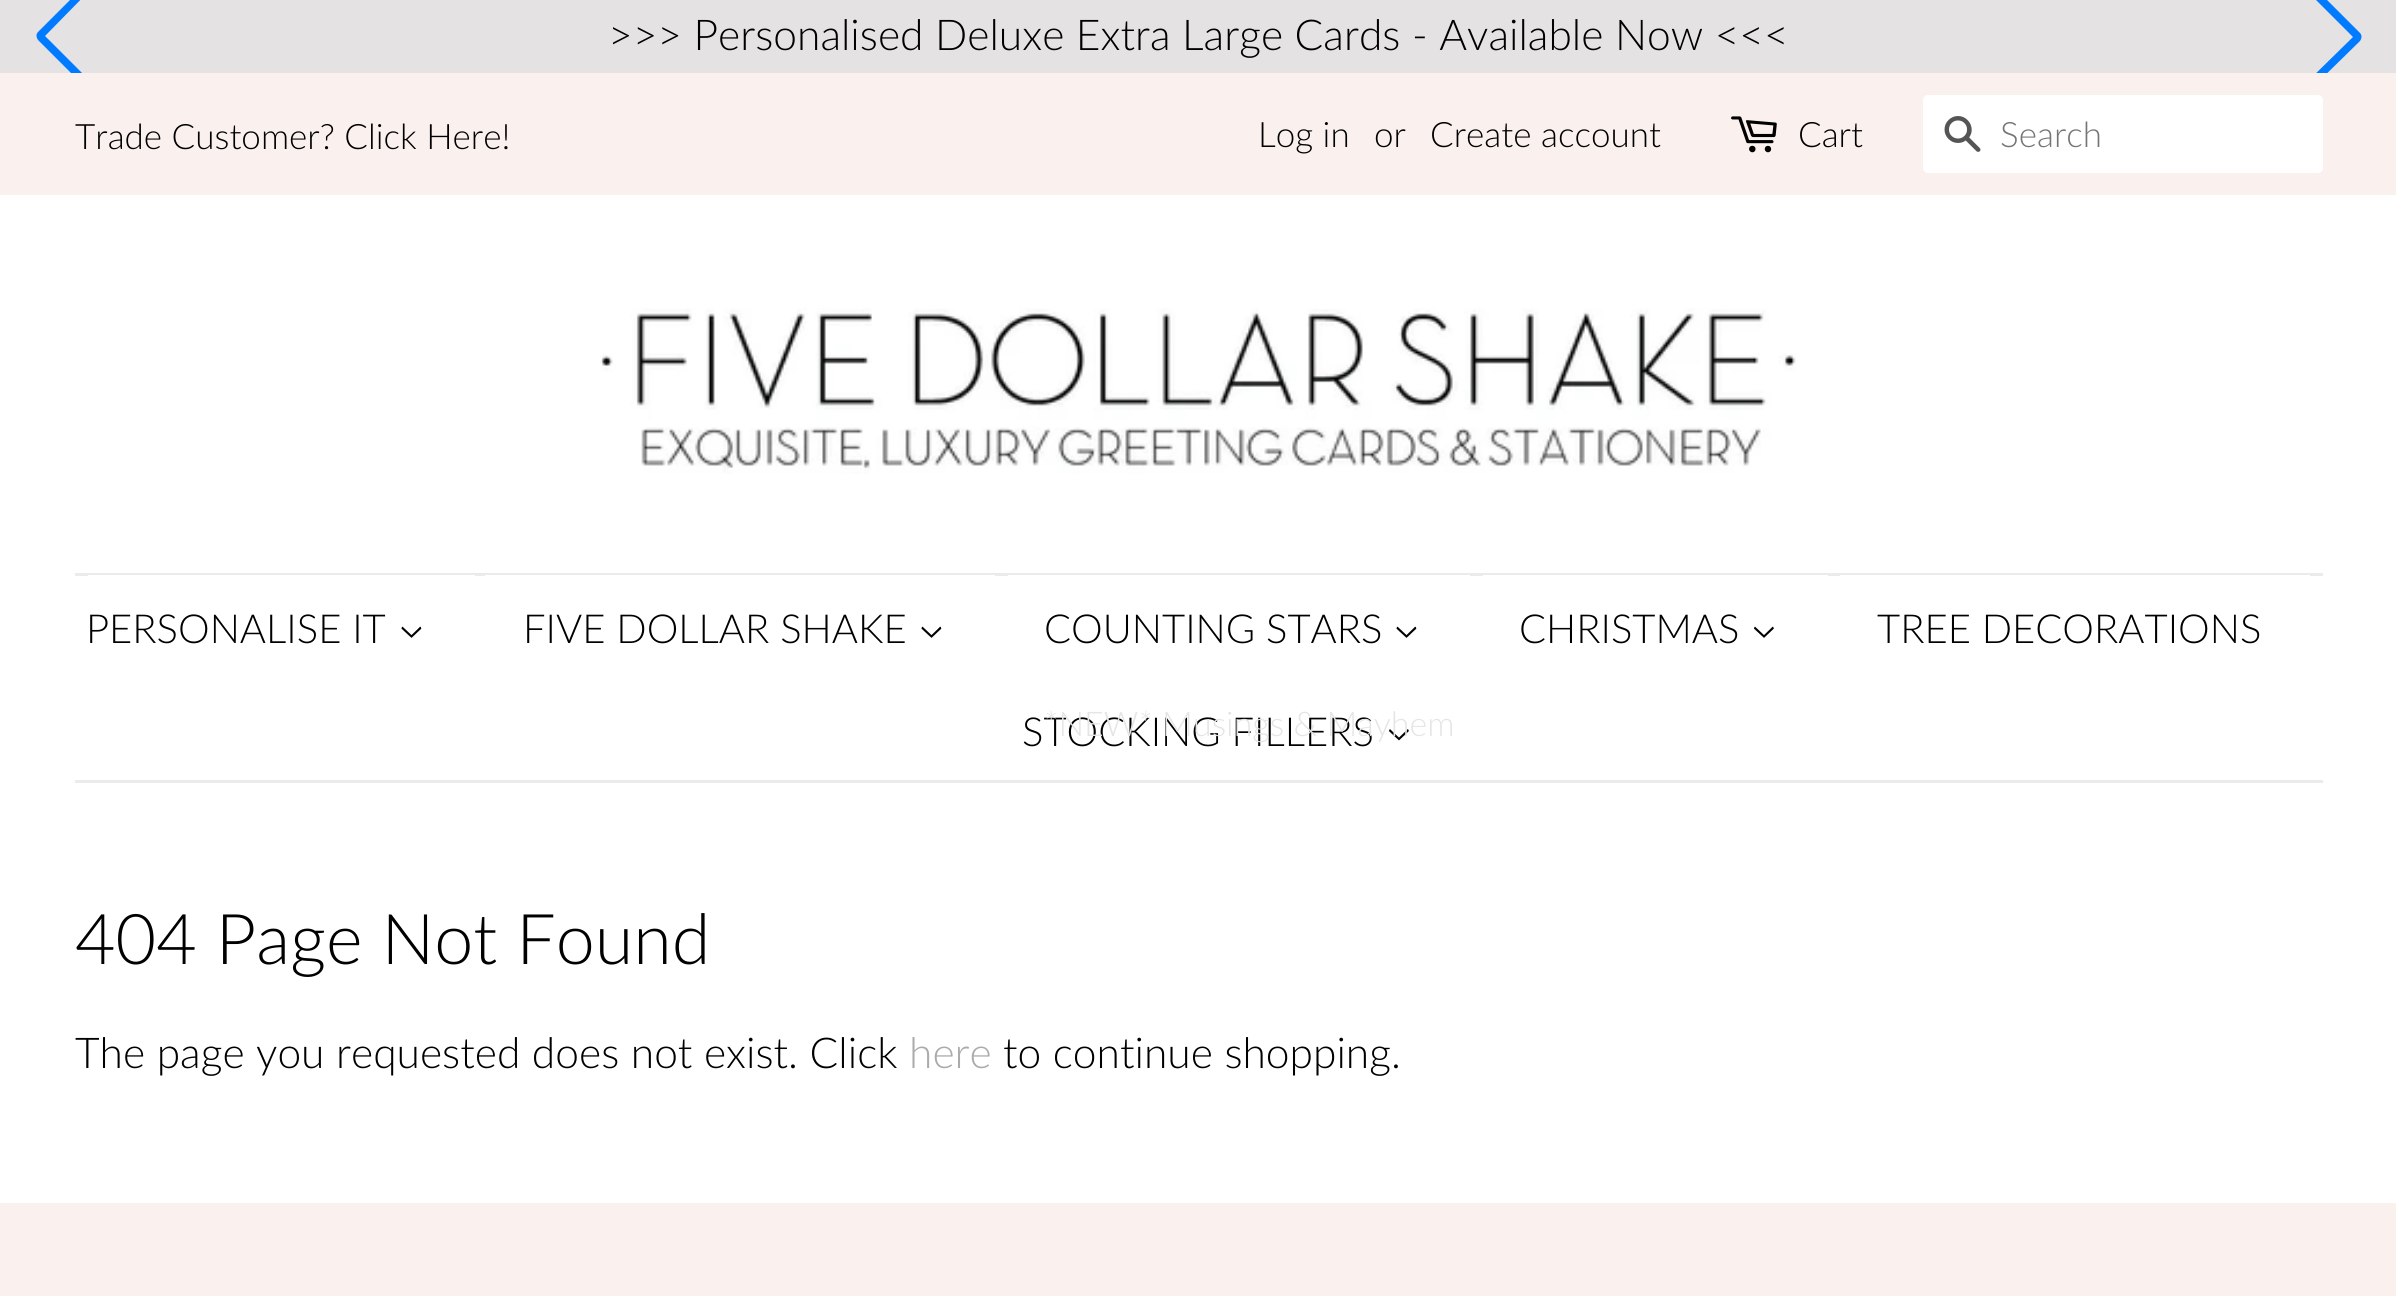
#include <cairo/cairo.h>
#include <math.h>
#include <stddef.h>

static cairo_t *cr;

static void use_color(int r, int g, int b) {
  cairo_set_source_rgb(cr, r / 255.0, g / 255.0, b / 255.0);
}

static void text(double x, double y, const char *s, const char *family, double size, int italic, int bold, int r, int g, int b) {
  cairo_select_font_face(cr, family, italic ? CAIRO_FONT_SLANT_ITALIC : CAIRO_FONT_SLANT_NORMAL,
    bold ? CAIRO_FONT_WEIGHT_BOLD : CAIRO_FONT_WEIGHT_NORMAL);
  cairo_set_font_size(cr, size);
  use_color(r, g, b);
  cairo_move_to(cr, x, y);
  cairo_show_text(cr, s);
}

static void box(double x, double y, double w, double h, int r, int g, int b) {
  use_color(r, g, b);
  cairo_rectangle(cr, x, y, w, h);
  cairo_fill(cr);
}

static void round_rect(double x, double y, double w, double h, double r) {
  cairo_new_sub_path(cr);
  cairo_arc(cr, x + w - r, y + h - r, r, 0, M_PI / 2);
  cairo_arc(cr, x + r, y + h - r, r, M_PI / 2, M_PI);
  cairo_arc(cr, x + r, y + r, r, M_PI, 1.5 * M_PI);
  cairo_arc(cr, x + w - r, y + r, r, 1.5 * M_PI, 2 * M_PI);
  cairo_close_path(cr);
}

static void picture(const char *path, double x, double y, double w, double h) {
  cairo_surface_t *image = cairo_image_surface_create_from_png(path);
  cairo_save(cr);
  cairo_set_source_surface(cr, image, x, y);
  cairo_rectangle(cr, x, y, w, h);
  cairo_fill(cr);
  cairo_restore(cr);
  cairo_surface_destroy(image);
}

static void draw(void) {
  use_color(255, 255, 255);
  cairo_paint(cr);
  box(0, 0, 2396, 73, 228, 226, 226);
  cairo_save(cr);
  cairo_rectangle(cr, 10, 0, 110, 73);
  cairo_clip(cr);
  use_color(0, 122, 255);
  cairo_new_path(cr);
  cairo_move_to(cr, 93, -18);
  cairo_curve_to(cr, 95, -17, 95, -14, 93, -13);
  cairo_line_to(cr, 45, 36);
  cairo_line_to(cr, 93, 84);
  cairo_curve_to(cr, 95, 86, 95, 88, 93, 90);
  cairo_curve_to(cr, 92, 91, 89, 91, 88, 90);
  cairo_line_to(cr, 38, 40);
  cairo_curve_to(cr, 36, 37, 36, 34, 38, 32);
  cairo_line_to(cr, 88, -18);
  cairo_curve_to(cr, 89, -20, 92, -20, 93, -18);
  cairo_close_path(cr);
  cairo_fill(cr);
  cairo_restore(cr);
  cairo_save(cr);
  cairo_rectangle(cr, 2278, 0, 110, 73);
  cairo_clip(cr);
  use_color(0, 122, 255);
  cairo_new_path(cr);
  cairo_move_to(cr, 2304, 90);
  cairo_curve_to(cr, 2303, 89, 2303, 87, 2304, 85);
  cairo_line_to(cr, 2353, 37);
  cairo_line_to(cr, 2304, -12);
  cairo_curve_to(cr, 2303, -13, 2303, -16, 2304, -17);
  cairo_curve_to(cr, 2306, -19, 2308, -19, 2310, -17);
  cairo_line_to(cr, 2360, 33);
  cairo_curve_to(cr, 2362, 35, 2362, 38, 2360, 41);
  cairo_line_to(cr, 2310, 90);
  cairo_curve_to(cr, 2308, 92, 2306, 92, 2304, 90);
  cairo_close_path(cr);
  cairo_fill(cr);
  cairo_restore(cr);
  box(0, 73, 2396, 122, 250, 241, 239);
  picture("img_01.png", 1731, 116, 46, 37);
  use_color(255, 255, 255);
  round_rect(1923, 95, 400, 78, 5);
  cairo_fill(cr);
  picture("img_02.png", 1944, 116, 37, 36);
  picture("img_03.png", 600, 308, 1196, 166);
  box(75, 573, 2248, 3, 235, 235, 235);
  box(75, 780, 2248, 3, 235, 235, 235);
  box(88, 575, 387, 1, 255, 255, 255);
  picture("img_04.png", 401, 626, 21, 12);
  box(485, 575, 510, 1, 255, 255, 255);
  picture("img_04.png", 921, 626, 21, 12);
  box(1008, 575, 462, 1, 255, 255, 255);
  picture("img_04.png", 1396, 626, 21, 12);
  box(1483, 575, 345, 1, 255, 255, 255);
  picture("img_05.png", 1754, 626, 20, 12);
  box(1840, 575, 470, 1, 255, 255, 255);
  picture("img_06.png", 1389, 729, 20, 12);
  box(0, 1203, 2396, 93, 250, 241, 239);
  text(608, 50, ">>> Personalised Deluxe Extra Large Cards - Available Now <<<", "Lato Light", 42.5, 0, 0, 0, 0, 0);
  text(75, 149, "Trade Customer? Click Here!", "Lato Light", 35, 0, 0, 0, 0, 0);
  text(1258, 147, "Log in", "Lato Light", 35, 0, 0, 0, 0, 0);
  text(1374, 147, "or", "Lato Light", 35, 0, 0, 0, 0, 0);
  text(1430, 147, "Create account", "Lato Light", 35, 0, 0, 0, 0, 0);
  text(1798, 147, "Cart", "Lato Light", 35, 0, 0, 0, 0, 0);
  text(2000, 147, "Search", "Lato Light", 35, 0, 0, 117, 117, 117);
  text(86, 643, "PERSONALISE IT", "Lato Light", 40, 0, 0, 0, 0, 0);
  text(523, 643, "FIVE DOLLAR SHAKE", "Lato Light", 40, 0, 0, 0, 0, 0);
  text(1044, 643, "COUNTING STARS", "Lato Light", 40, 0, 0, 0, 0, 0);
  text(1519, 643, "CHRISTMAS", "Lato Light", 40, 0, 0, 0, 0, 0);
  text(1877, 643, "TREE DECORATIONS", "Lato Light", 40, 0, 0, 0, 0, 0);
  text(1022, 746, "STOCKING FILLERS", "Lato Light", 40, 0, 0, 0, 0, 0);
  text(1044, 736, "*NEW* Musings & Mayhem", "Lato Light", 34, 0, 0, 229, 229, 229);
  text(75, 964, "404 Page Not Found", "Lato Light", 70, 0, 0, 0, 0, 0);
  text(75, 1068, "The page you requested does not exist. Click", "Lato Light", 42.5, 0, 0, 0, 0, 0);
  text(909, 1068, "here", "Lato Light", 42.5, 0, 0, 171, 171, 171);
  text(1003, 1068, "to continue shopping.", "Lato Light", 42.5, 0, 0, 0, 0, 0);
}

int main(void) {
  cairo_surface_t *surface = cairo_image_surface_create(CAIRO_FORMAT_RGB24, 2396, 1296);
  cr = cairo_create(surface);
  cairo_font_options_t *options = cairo_font_options_create();
  cairo_font_options_set_hint_metrics(options, CAIRO_HINT_METRICS_OFF);
  cairo_font_options_set_hint_style(options, CAIRO_HINT_STYLE_NONE);
  cairo_set_font_options(cr, options);
  cairo_set_miter_limit(cr, 4);
  draw();
  cairo_surface_write_to_png(surface, "out.png");
  cairo_font_options_destroy(options);
  cairo_destroy(cr);
  cairo_surface_destroy(surface);
  return 0;
}
